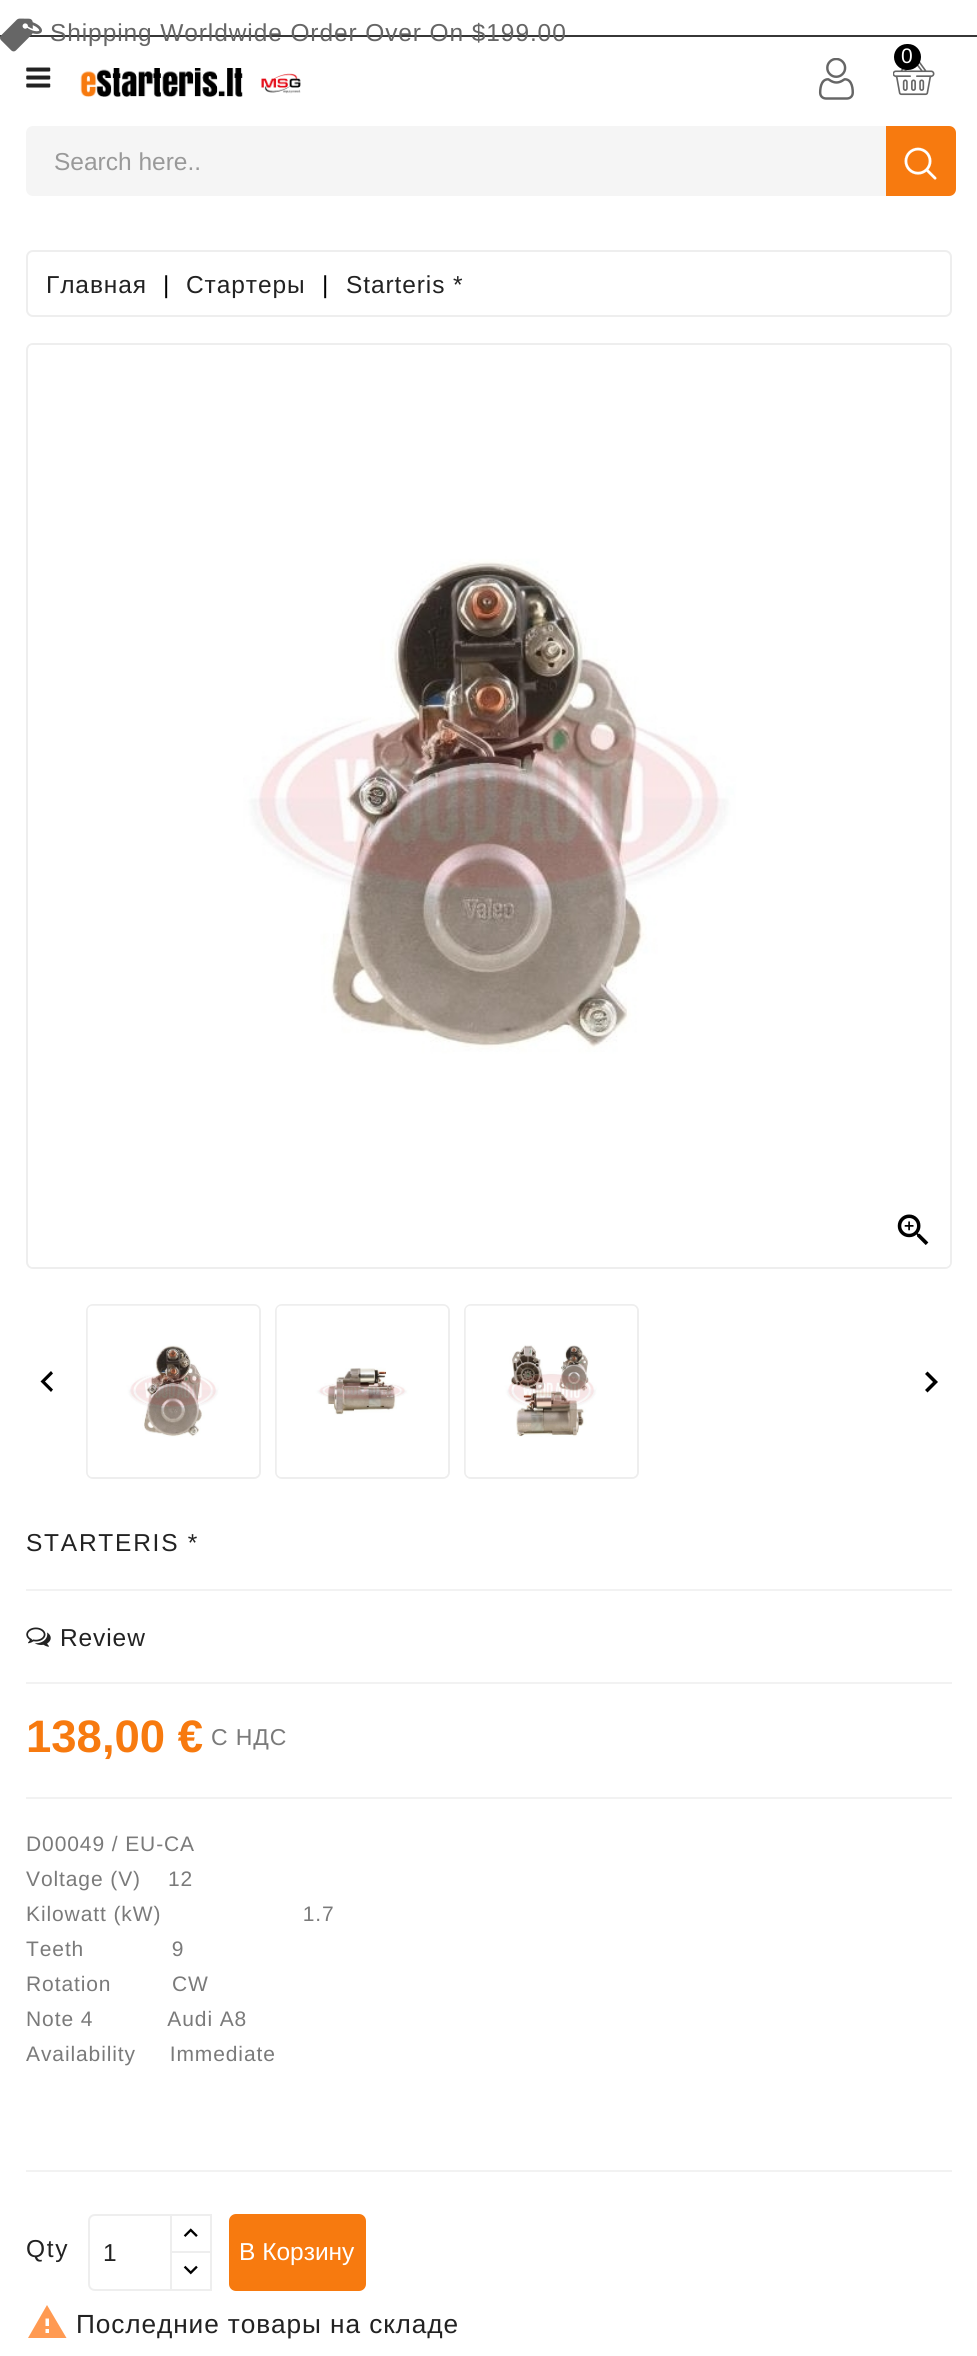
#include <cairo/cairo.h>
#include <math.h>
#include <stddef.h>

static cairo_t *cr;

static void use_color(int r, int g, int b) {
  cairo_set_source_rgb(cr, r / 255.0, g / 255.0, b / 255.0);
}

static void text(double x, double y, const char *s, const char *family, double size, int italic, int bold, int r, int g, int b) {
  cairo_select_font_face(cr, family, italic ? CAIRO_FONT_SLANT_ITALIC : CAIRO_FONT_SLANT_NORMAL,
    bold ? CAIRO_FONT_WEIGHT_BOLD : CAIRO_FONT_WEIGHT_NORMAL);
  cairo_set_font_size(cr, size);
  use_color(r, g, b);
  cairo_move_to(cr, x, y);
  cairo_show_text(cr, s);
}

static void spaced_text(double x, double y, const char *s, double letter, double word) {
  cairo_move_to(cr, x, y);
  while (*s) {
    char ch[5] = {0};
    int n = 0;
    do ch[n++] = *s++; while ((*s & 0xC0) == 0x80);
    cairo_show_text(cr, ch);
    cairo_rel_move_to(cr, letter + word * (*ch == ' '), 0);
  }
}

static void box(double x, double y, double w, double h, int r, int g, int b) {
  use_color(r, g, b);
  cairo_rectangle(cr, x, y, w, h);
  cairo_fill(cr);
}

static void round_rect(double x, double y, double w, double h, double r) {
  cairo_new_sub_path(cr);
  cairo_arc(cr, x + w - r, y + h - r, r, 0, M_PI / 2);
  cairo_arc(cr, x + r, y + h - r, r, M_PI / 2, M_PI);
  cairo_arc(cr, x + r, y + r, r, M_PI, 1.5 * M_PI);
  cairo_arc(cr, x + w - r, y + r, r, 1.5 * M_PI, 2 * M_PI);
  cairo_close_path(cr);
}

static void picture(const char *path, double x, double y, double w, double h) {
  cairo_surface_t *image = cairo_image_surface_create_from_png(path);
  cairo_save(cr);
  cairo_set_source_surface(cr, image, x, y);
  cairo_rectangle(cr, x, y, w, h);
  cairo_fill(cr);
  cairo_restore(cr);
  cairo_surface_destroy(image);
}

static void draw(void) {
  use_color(255, 255, 255);
  cairo_paint(cr);
  box(0, 35, 977, 2, 55, 55, 55);
  picture("img_01.png", 0, 18, 42, 34);
  picture("img_02.png", 893, 61, 42, 35);
  use_color(0, 0, 0);
  round_rect(894, 44, 27, 26, 13);
  cairo_fill(cr);
  picture("img_03.png", 26, 67, 25, 21);
  picture("img_04.png", 80, 68, 221, 29);
  picture("img_05.png", 818, 58, 36, 42);
  use_color(245, 245, 245);
  cairo_new_path(cr);
  cairo_move_to(cr, 33, 126);
  cairo_line_to(cr, 886, 126);
  cairo_line_to(cr, 886, 196);
  cairo_line_to(cr, 33, 196);
  cairo_curve_to(cr, 29, 196, 26, 193, 26, 189);
  cairo_line_to(cr, 26, 133);
  cairo_curve_to(cr, 26, 129, 29, 126, 33, 126);
  cairo_close_path(cr);
  cairo_fill(cr);
  use_color(247, 122, 15);
  cairo_new_path(cr);
  cairo_move_to(cr, 886, 126);
  cairo_line_to(cr, 949, 126);
  cairo_curve_to(cr, 953, 126, 956, 129, 956, 133);
  cairo_line_to(cr, 956, 189);
  cairo_curve_to(cr, 956, 193, 953, 196, 949, 196);
  cairo_line_to(cr, 886, 196);
  cairo_close_path(cr);
  cairo_fill(cr);
  picture("img_06.png", 904, 147, 33, 33);
  round_rect(27, 251, 924, 65, 6);
  use_color(238, 238, 238);
  cairo_stroke(cr);
  round_rect(27, 344, 924, 924, 6);
  cairo_stroke(cr);
  picture("img_07.png", 29, 345, 921, 922);
  picture("img_08.png", 897, 1214, 32, 31);
  round_rect(87, 1305, 173, 173, 6);
  cairo_stroke(cr);
  picture("img_09.png", 87, 1305, 172, 172);
  round_rect(276, 1305, 173, 173, 6);
  cairo_stroke(cr);
  picture("img_10.png", 276, 1305, 172, 172);
  round_rect(465, 1305, 173, 173, 6);
  cairo_stroke(cr);
  picture("img_11.png", 465, 1305, 172, 172);
  use_color(0, 0, 0);
  cairo_new_path(cr);
  cairo_move_to(cr, 53, 1389.5);
  cairo_line_to(cr, 51, 1392);
  cairo_line_to(cr, 40.5, 1381.5);
  cairo_line_to(cr, 51, 1371);
  cairo_line_to(cr, 53, 1373.5);
  cairo_line_to(cr, 45, 1381.5);
  cairo_close_path(cr);
  cairo_fill(cr);
  cairo_new_path(cr);
  cairo_move_to(cr, 925, 1390);
  cairo_line_to(cr, 933, 1382);
  cairo_line_to(cr, 925, 1374);
  cairo_line_to(cr, 927.5, 1371.5);
  cairo_line_to(cr, 938, 1382);
  cairo_line_to(cr, 927.5, 1392.5);
  cairo_close_path(cr);
  cairo_fill(cr);
  box(26, 1589, 926, 2, 242, 242, 242);
  picture("img_12.png", 26, 1627, 25, 20);
  box(26, 1682, 926, 2, 242, 242, 242);
  box(26, 1797, 926, 2, 242, 242, 242);
  box(26, 2170, 926, 2, 242, 242, 242);
  cairo_rectangle(cr, 171, 2215, 40, 38);
  use_color(238, 238, 238);
  cairo_stroke(cr);
  box(172, 2253, 38, 1, 255, 255, 255);
  cairo_rectangle(cr, 171, 2252, 40, 38);
  use_color(238, 238, 238);
  cairo_stroke(cr);
  use_color(255, 255, 255);
  cairo_new_path(cr);
  cairo_move_to(cr, 95, 2215);
  cairo_line_to(cr, 171, 2215);
  cairo_line_to(cr, 171, 2290);
  cairo_line_to(cr, 95, 2290);
  cairo_curve_to(cr, 91.5, 2290, 89, 2287.5, 89, 2284);
  cairo_line_to(cr, 89, 2221);
  cairo_curve_to(cr, 89, 2217.5, 91.5, 2215, 95, 2215);
  cairo_close_path(cr);
  cairo_fill_preserve(cr);
  use_color(238, 238, 238);
  cairo_stroke(cr);
  picture("img_13.png", 183, 2228, 15, 9);
  picture("img_14.png", 183, 2265, 15, 10);
  use_color(247, 122, 15);
  round_rect(229, 2214, 137, 77, 7);
  cairo_fill(cr);
  use_color(255, 154, 82);
  cairo_new_path(cr);
  cairo_move_to(cr, 49, 2326);
  cairo_line_to(cr, 49, 2318.5);
  cairo_line_to(cr, 45.5, 2318.5);
  cairo_line_to(cr, 45.5, 2326);
  cairo_close_path(cr);
  cairo_move_to(cr, 49, 2333);
  cairo_line_to(cr, 49, 2329);
  cairo_line_to(cr, 45.5, 2329);
  cairo_line_to(cr, 45.5, 2333);
  cairo_close_path(cr);
  cairo_move_to(cr, 28, 2338);
  cairo_line_to(cr, 47, 2305);
  cairo_line_to(cr, 66.5, 2338);
  cairo_close_path(cr);
  cairo_fill(cr);
  cairo_select_font_face(cr, "Liberation Sans", CAIRO_FONT_SLANT_NORMAL, CAIRO_FONT_WEIGHT_NORMAL);
  cairo_set_font_size(cr, 24.5);
  use_color(102, 102, 102);
  spaced_text(50, 41, "Shipping Worldwide Order Over On $199.00", 0.9, 0);
  cairo_set_font_size(cr, 21);
  use_color(255, 255, 255);
  spaced_text(901, 63, "0", 0.9, 0);
  text(54, 170, "Search here..", "Liberation Sans", 24.5, 0, 0, 153, 153, 153);
  use_color(34, 34, 34);
  spaced_text(46, 293, "Главная", 0.9, 0);
  use_color(0, 0, 0);
  spaced_text(163, 293, "|", 0.9, 0);
  use_color(34, 34, 34);
  spaced_text(186, 293, "Стартеры", 0.9, 0);
  use_color(0, 0, 0);
  spaced_text(322, 293, "|", 0.9, 0);
  use_color(34, 34, 34);
  spaced_text(346, 293, "Starteris *", 0.9, 0);
  spaced_text(26, 1551, "STARTERIS *", 1.75, 0);
  spaced_text(60, 1646, "Review", 0.9, 0);
  text(26, 1752, "138,00 €", "Liberation Sans", 45.5, 0, 1, 247, 122, 15);
  cairo_select_font_face(cr, "Liberation Sans", CAIRO_FONT_SLANT_NORMAL, CAIRO_FONT_WEIGHT_NORMAL);
  cairo_set_font_size(cr, 23);
  use_color(122, 122, 122);
  spaced_text(211, 1745, "С НДС", 0.9, 0);
  cairo_set_font_size(cr, 21);
  spaced_text(26, 1851, "D00049 / EU-CA", 0.9, 0);
  spaced_text(26, 1886, "Voltage (V)    12", 0.9, 0);
  spaced_text(26, 1921, "Kilowatt (kW)                     1.7", 0.9, 0);
  spaced_text(26, 1956, "Teeth             9", 0.9, 0);
  spaced_text(26, 1991, "Rotation         CW", 0.9, 0);
  spaced_text(26, 2026, "Note 4           Audi A8", 0.9, 0);
  spaced_text(26, 2061, "Availability     Immediate", 0.9, 0);
  cairo_set_font_size(cr, 24.5);
  use_color(34, 34, 34);
  spaced_text(26, 2257, "Qty", 1.75, 0);
  text(103, 2261, "1", "Liberation Sans", 24.5, 0, 0, 34, 34, 34);
  text(239, 2260, "В Корзину", "Liberation Sans", 24.5, 0, 0, 255, 255, 255);
  cairo_set_font_size(cr, 26.25);
  use_color(34, 34, 34);
  spaced_text(76, 2333, "Последние товары на складе", 0.9, 0);
}

int main(void) {
  cairo_surface_t *surface = cairo_image_surface_create(CAIRO_FORMAT_RGB24, 977, 2356);
  cr = cairo_create(surface);
  cairo_font_options_t *options = cairo_font_options_create();
  cairo_font_options_set_hint_metrics(options, CAIRO_HINT_METRICS_OFF);
  cairo_font_options_set_hint_style(options, CAIRO_HINT_STYLE_NONE);
  cairo_set_font_options(cr, options);
  cairo_set_miter_limit(cr, 4);
  draw();
  cairo_surface_write_to_png(surface, "out.png");
  cairo_font_options_destroy(options);
  cairo_destroy(cr);
  cairo_surface_destroy(surface);
  return 0;
}
